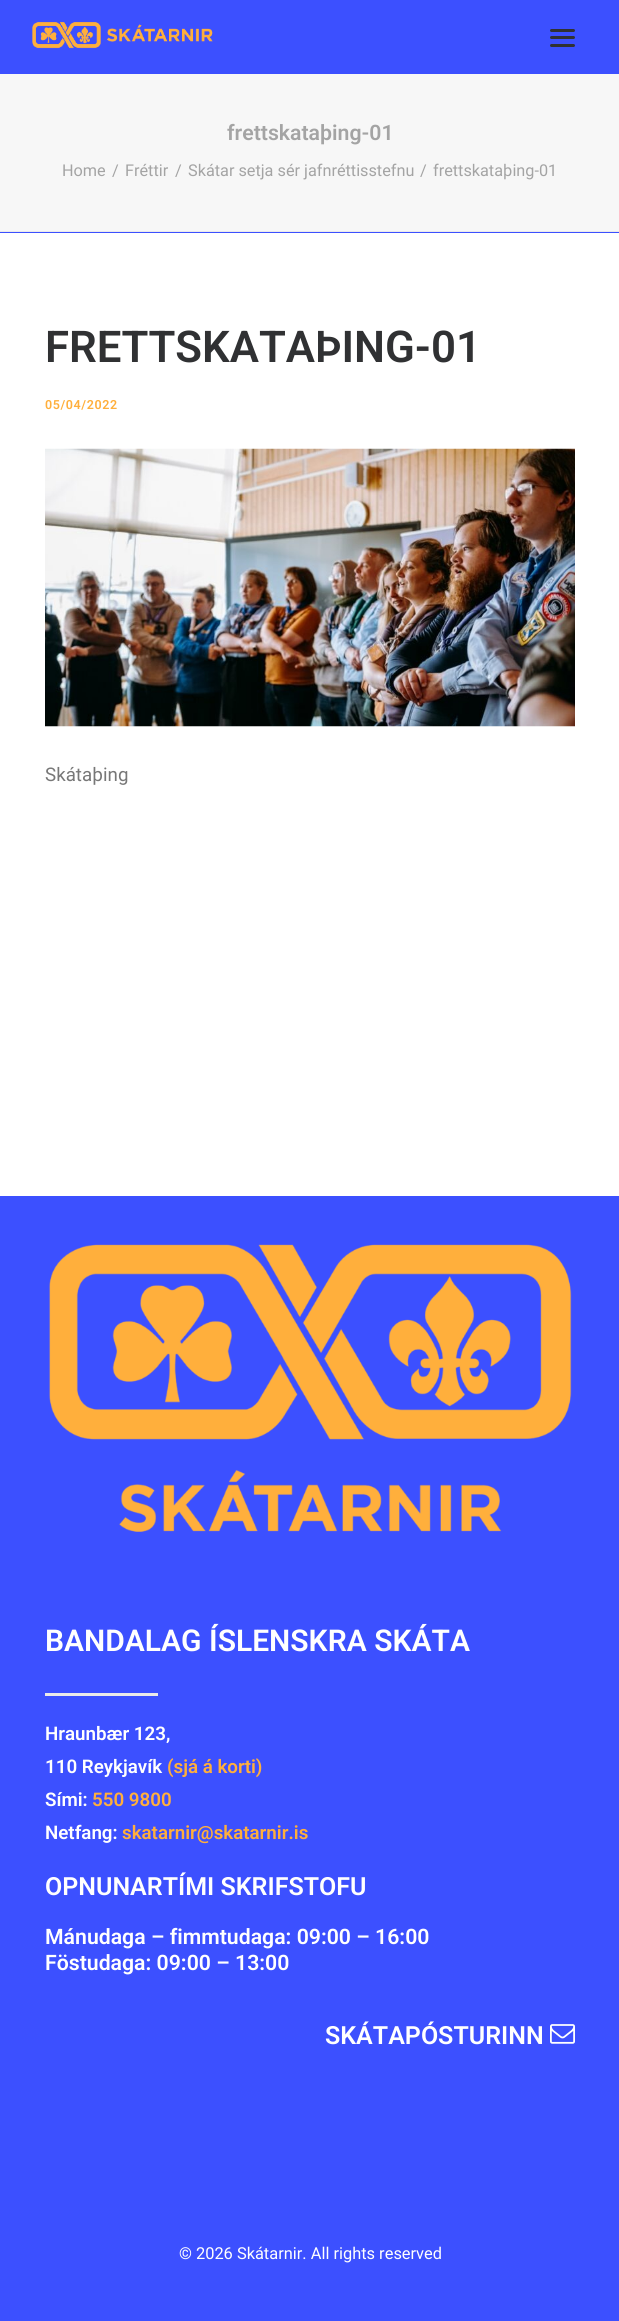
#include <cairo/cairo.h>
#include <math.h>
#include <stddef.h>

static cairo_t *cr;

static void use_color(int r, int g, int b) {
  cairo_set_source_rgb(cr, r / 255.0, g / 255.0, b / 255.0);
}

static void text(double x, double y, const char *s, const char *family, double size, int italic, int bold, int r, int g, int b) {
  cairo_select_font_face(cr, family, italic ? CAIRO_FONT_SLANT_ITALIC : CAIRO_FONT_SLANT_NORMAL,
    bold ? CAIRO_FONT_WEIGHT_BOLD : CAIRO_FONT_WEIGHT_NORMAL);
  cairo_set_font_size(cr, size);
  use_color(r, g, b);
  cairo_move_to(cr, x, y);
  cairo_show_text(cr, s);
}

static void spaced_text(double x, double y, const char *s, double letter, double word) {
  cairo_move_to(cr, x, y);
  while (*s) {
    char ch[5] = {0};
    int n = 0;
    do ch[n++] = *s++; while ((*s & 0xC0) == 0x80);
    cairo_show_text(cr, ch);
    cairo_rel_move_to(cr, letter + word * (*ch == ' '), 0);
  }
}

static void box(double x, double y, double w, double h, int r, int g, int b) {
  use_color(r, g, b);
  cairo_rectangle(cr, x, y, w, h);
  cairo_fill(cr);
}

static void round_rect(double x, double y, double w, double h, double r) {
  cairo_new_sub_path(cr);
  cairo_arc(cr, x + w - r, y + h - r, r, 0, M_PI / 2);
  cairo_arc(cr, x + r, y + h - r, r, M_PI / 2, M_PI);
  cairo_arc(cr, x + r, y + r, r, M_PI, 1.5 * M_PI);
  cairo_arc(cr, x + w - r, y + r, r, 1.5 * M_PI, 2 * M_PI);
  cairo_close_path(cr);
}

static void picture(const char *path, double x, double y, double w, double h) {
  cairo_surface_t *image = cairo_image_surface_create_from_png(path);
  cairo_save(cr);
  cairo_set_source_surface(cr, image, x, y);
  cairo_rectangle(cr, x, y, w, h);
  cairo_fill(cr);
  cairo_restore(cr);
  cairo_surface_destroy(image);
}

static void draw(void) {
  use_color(60, 80, 255);
  cairo_paint(cr);
  picture("img_01.png", 32, 22, 181, 27);
  use_color(48, 49, 51);
  round_rect(550, 36, 25, 3, 1.5);
  cairo_fill(cr);
  round_rect(550, 29, 25, 3, 1.5);
  cairo_fill(cr);
  round_rect(550, 44, 25, 3, 1.5);
  cairo_fill(cr);
  box(0, 74, 619, 157, 247, 247, 247);
  box(0, 231, 619, 1, 234, 234, 234);
  box(0, 233, 619, 963, 255, 255, 255);
  picture("img_02.png", 45, 448, 530, 279);
  picture("img_03.png", 49, 1244, 523, 288);
  box(45, 1693, 113, 3, 234, 234, 234);
  picture("img_04.png", 550, 2024, 25, 20);
  text(227, 140, "frettskataþing-01", "Roboto SemiBold", 21.25, 0, 0, 164, 164, 164);
  text(62, 176, "Home", "Roboto", 16.25, 0, 0, 164, 164, 164);
  text(112, 176, "/", "Roboto", 16.25, 0, 0, 164, 164, 164);
  text(125, 176, "Fréttir", "Roboto", 16.25, 0, 0, 164, 164, 164);
  text(175, 176, "/", "Roboto", 16.25, 0, 0, 164, 164, 164);
  text(188, 176, "Skátar setja sér jafnréttisstefnu", "Roboto", 16.25, 0, 0, 164, 164, 164);
  text(420, 176, "/", "Roboto", 16.25, 0, 0, 164, 164, 164);
  text(433, 176, "frettskataþing-01", "Roboto", 16.25, 0, 0, 164, 164, 164);
  text(45, 362, "FRETTSKATAÞING-01", "Roboto SemiBold", 43.75, 0, 0, 48, 49, 51);
  cairo_set_font_size(cr, 12.5);
  use_color(255, 175, 60);
  spaced_text(45, 409, "05/04/2022", 0.6, 0);
  text(45, 781, "Skátaþing", "Roboto", 18.75, 0, 0, 119, 119, 119);
  text(45, 1651, "BANDALAG ÍSLENSKRA SKÁTA", "Roboto SemiBold", 30, 0, 0, 255, 255, 255);
  text(45, 1740, "Hraunbær 123,", "Roboto SemiBold", 18.75, 0, 0, 255, 255, 255);
  text(45, 1773, "110 Reykjavík", "Roboto SemiBold", 18.75, 0, 0, 255, 255, 255);
  text(167, 1773, "(sjá á korti)", "Roboto SemiBold", 18.75, 0, 0, 255, 175, 60);
  text(45, 1806, "Sími:", "Roboto SemiBold", 18.75, 0, 0, 255, 255, 255);
  text(92, 1806, "550 9800", "Roboto SemiBold", 18.75, 0, 0, 255, 175, 60);
  text(45, 1839, "Netfang:", "Roboto SemiBold", 18.75, 0, 0, 255, 255, 255);
  text(122, 1839, "skatarnir@skatarnir.is", "Roboto SemiBold", 18.75, 0, 0, 255, 175, 60);
  text(45, 1895, "OPNUNARTÍMI SKRIFSTOFU", "Roboto SemiBold", 25, 0, 0, 255, 255, 255);
  text(45, 1944, "Mánudaga – fimmtudaga: 09:00 – 16:00", "Roboto SemiBold", 21.25, 0, 0, 255, 255, 255);
  text(45, 1970, "Föstudaga: 09:00 – 13:00", "Roboto SemiBold", 21.25, 0, 0, 255, 255, 255);
  text(325, 2044, "SKÁTAPÓSTURINN", "Roboto SemiBold", 25, 0, 0, 255, 255, 255);
  text(179, 2259, "© 2026 Skátarnir. All rights reserved", "Roboto", 16.4, 0, 0, 255, 255, 255);
}

int main(void) {
  cairo_surface_t *surface = cairo_image_surface_create(CAIRO_FORMAT_RGB24, 619, 2321);
  cr = cairo_create(surface);
  cairo_font_options_t *options = cairo_font_options_create();
  cairo_font_options_set_hint_metrics(options, CAIRO_HINT_METRICS_OFF);
  cairo_font_options_set_hint_style(options, CAIRO_HINT_STYLE_NONE);
  cairo_set_font_options(cr, options);
  cairo_set_miter_limit(cr, 4);
  draw();
  cairo_surface_write_to_png(surface, "out.png");
  cairo_font_options_destroy(options);
  cairo_destroy(cr);
  cairo_surface_destroy(surface);
  return 0;
}
